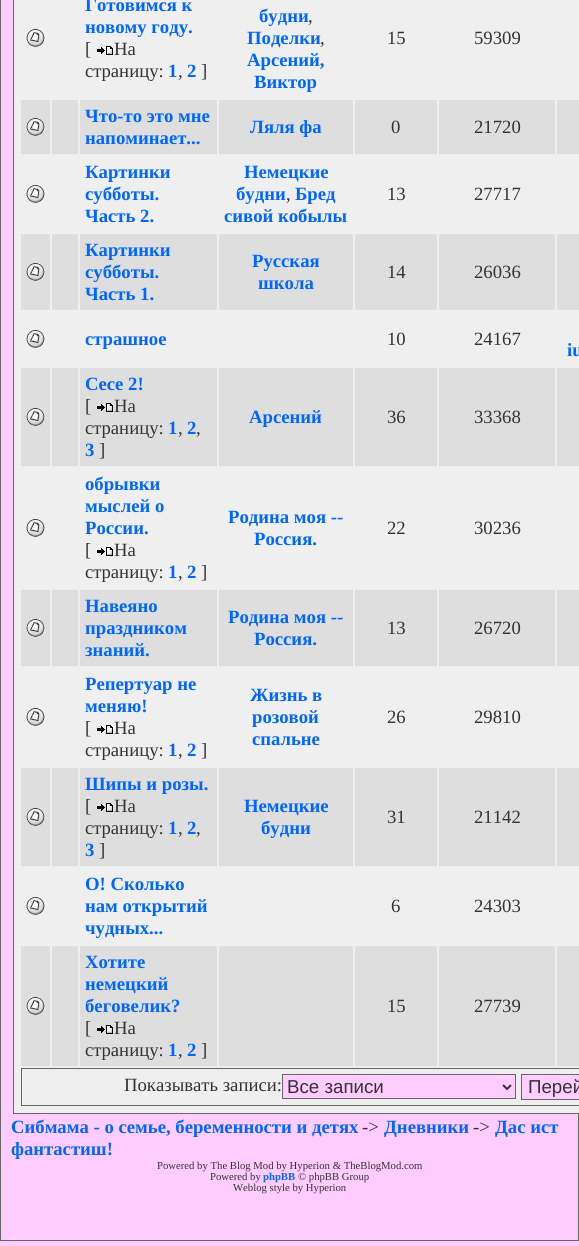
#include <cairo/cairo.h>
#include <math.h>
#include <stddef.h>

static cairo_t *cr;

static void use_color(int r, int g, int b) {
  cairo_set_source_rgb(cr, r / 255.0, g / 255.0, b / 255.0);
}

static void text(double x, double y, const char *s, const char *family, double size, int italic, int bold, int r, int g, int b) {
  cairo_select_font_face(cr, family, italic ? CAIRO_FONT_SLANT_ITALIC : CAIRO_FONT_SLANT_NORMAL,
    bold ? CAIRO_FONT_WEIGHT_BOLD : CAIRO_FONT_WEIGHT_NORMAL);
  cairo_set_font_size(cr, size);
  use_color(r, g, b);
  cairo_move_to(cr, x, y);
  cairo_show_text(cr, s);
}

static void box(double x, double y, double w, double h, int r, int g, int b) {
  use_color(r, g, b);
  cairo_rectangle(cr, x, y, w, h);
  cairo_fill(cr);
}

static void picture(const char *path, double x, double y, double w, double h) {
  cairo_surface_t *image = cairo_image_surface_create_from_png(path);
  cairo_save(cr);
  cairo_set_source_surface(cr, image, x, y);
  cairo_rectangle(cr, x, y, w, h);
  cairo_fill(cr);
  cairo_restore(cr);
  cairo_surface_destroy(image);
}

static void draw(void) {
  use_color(255, 204, 255);
  cairo_paint(cr);
  cairo_rectangle(cr, 0.5, -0.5, 578, 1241);
  use_color(102, 102, 102);
  cairo_set_line_width(cr, 1);
  cairo_stroke(cr);
  use_color(239, 239, 239);
  cairo_rectangle(cr, 13.5, -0.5, 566, 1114);
  cairo_fill_preserve(cr);
  use_color(102, 102, 102);
  cairo_stroke(cr);
  picture("img_01.png", 26, 29, 19, 18);
  picture("img_02.png", 97, 46, 16, 9);
  box(21, 100, 29, 54, 222, 222, 222);
  picture("img_03.png", 26, 118, 19, 18);
  box(52, 100, 26, 54, 222, 222, 222);
  box(80, 100, 137, 54, 222, 222, 222);
  box(219, 100, 134, 54, 222, 222, 222);
  box(355, 100, 82, 54, 222, 222, 222);
  box(439, 100, 116, 54, 222, 222, 222);
  box(557, 100, 22, 54, 222, 222, 222);
  picture("img_01.png", 26, 185, 19, 18);
  box(21, 234, 29, 76, 222, 222, 222);
  picture("img_03.png", 26, 263, 19, 18);
  box(52, 234, 26, 76, 222, 222, 222);
  box(80, 234, 137, 76, 222, 222, 222);
  box(219, 234, 134, 76, 222, 222, 222);
  box(355, 234, 82, 76, 222, 222, 222);
  box(439, 234, 116, 76, 222, 222, 222);
  box(557, 234, 22, 76, 222, 222, 222);
  picture("img_01.png", 26, 330, 19, 18);
  box(21, 368, 29, 98, 222, 222, 222);
  picture("img_04.png", 26, 408, 19, 18);
  box(52, 368, 26, 98, 222, 222, 222);
  box(80, 368, 137, 98, 222, 222, 222);
  picture("img_05.png", 97, 403, 16, 9);
  box(219, 368, 134, 98, 222, 222, 222);
  box(355, 368, 82, 98, 222, 222, 222);
  box(439, 368, 116, 98, 222, 222, 222);
  box(557, 368, 22, 98, 222, 222, 222);
  picture("img_01.png", 26, 519, 19, 18);
  picture("img_02.png", 97, 547, 16, 9);
  box(21, 590, 29, 76, 222, 222, 222);
  picture("img_03.png", 26, 619, 19, 18);
  box(52, 590, 26, 76, 222, 222, 222);
  box(80, 590, 137, 76, 222, 222, 222);
  box(219, 590, 134, 76, 222, 222, 222);
  box(355, 590, 82, 76, 222, 222, 222);
  box(439, 590, 116, 76, 222, 222, 222);
  box(557, 590, 22, 76, 222, 222, 222);
  picture("img_01.png", 26, 708, 19, 18);
  picture("img_02.png", 97, 725, 16, 9);
  box(21, 768, 29, 98, 222, 222, 222);
  picture("img_04.png", 26, 808, 19, 18);
  box(52, 768, 26, 98, 222, 222, 222);
  box(80, 768, 137, 98, 222, 222, 222);
  picture("img_05.png", 97, 803, 16, 9);
  box(219, 768, 134, 98, 222, 222, 222);
  box(355, 768, 82, 98, 222, 222, 222);
  box(439, 768, 116, 98, 222, 222, 222);
  box(557, 768, 22, 98, 222, 222, 222);
  picture("img_01.png", 26, 897, 19, 18);
  box(21, 946, 29, 120, 222, 222, 222);
  picture("img_03.png", 26, 997, 19, 18);
  box(52, 946, 26, 120, 222, 222, 222);
  box(80, 946, 137, 120, 222, 222, 222);
  picture("img_05.png", 97, 1025, 16, 9);
  box(219, 946, 134, 120, 222, 222, 222);
  box(355, 946, 82, 120, 222, 222, 222);
  box(439, 946, 116, 120, 222, 222, 222);
  box(557, 946, 22, 120, 222, 222, 222);
  cairo_rectangle(cr, 21.5, 1068.5, 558, 37);
  use_color(102, 102, 102);
  cairo_stroke(cr);
  use_color(255, 204, 255);
  cairo_rectangle(cr, 282.5, 1074.5, 233, 24);
  cairo_fill_preserve(cr);
  use_color(102, 102, 102);
  cairo_stroke(cr);
  cairo_new_path(cr);
  cairo_move_to(cr, 503, 1085);
  cairo_line_to(cr, 507, 1089);
  cairo_line_to(cr, 511, 1085);
  use_color(51, 51, 51);
  cairo_set_line_width(cr, 2);
  cairo_stroke(cr);
  use_color(255, 204, 255);
  cairo_rectangle(cr, 521.5, 1074.5, 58, 25);
  cairo_fill_preserve(cr);
  use_color(102, 102, 102);
  cairo_set_line_width(cr, 1);
  cairo_stroke(cr);
  text(85, 11, "Готовимся к", "Liberation Serif", 18.7, 0, 1, 0, 102, 255);
  text(85, 33, "новому году.", "Liberation Serif", 18.7, 0, 1, 0, 102, 255);
  text(85, 55, "[", "Liberation Serif", 18.7, 0, 0, 51, 51, 51);
  text(114, 55, "На", "Liberation Serif", 18.7, 0, 0, 51, 51, 51);
  text(85, 77, "страницу:", "Liberation Serif", 18.7, 0, 0, 51, 51, 51);
  text(168, 77, "1", "Liberation Serif", 18.7, 0, 1, 0, 102, 255);
  text(178, 77, ",", "Liberation Serif", 18.7, 0, 0, 51, 51, 51);
  text(187, 77, "2", "Liberation Serif", 18.7, 0, 1, 0, 102, 255);
  text(201, 77, "]", "Liberation Serif", 18.7, 0, 0, 51, 51, 51);
  text(259, 22, "будни", "Liberation Serif", 18.7, 0, 1, 0, 102, 255);
  text(308, 22, ",", "Liberation Serif", 18.7, 0, 0, 51, 51, 51);
  text(247, 44, "Поделки", "Liberation Serif", 18.7, 0, 1, 0, 102, 255);
  text(320, 44, ",", "Liberation Serif", 18.7, 0, 0, 51, 51, 51);
  text(247, 66, "Арсений,", "Liberation Serif", 18.7, 0, 1, 0, 102, 255);
  text(254, 88, "Виктор", "Liberation Serif", 18.7, 0, 1, 0, 102, 255);
  text(387, 44, "15", "Liberation Serif", 18.7, 0, 0, 51, 51, 51);
  text(474, 44, "59309", "Liberation Serif", 18.7, 0, 0, 51, 51, 51);
  text(85, 122, "Что-то это мне", "Liberation Serif", 18.7, 0, 1, 0, 102, 255);
  text(85, 144, "напоминает...", "Liberation Serif", 18.7, 0, 1, 0, 102, 255);
  text(250, 133, "Ляля фа", "Liberation Serif", 18.7, 0, 1, 0, 102, 255);
  text(391, 133, "0", "Liberation Serif", 18.7, 0, 0, 51, 51, 51);
  text(474, 133, "21720", "Liberation Serif", 18.7, 0, 0, 51, 51, 51);
  text(85, 178, "Картинки", "Liberation Serif", 18.7, 0, 1, 0, 102, 255);
  text(85, 200, "субботы.", "Liberation Serif", 18.7, 0, 1, 0, 102, 255);
  text(85, 222, "Часть 2.", "Liberation Serif", 18.7, 0, 1, 0, 102, 255);
  text(244, 178, "Немецкие", "Liberation Serif", 18.7, 0, 1, 0, 102, 255);
  text(236, 200, "будни", "Liberation Serif", 18.7, 0, 1, 0, 102, 255);
  text(286, 200, ",", "Liberation Serif", 18.7, 0, 0, 51, 51, 51);
  text(295, 200, "Бред", "Liberation Serif", 18.7, 0, 1, 0, 102, 255);
  text(224, 222, "сивой кобылы", "Liberation Serif", 18.7, 0, 1, 0, 102, 255);
  text(387, 200, "13", "Liberation Serif", 18.7, 0, 0, 51, 51, 51);
  text(474, 200, "27717", "Liberation Serif", 18.7, 0, 0, 51, 51, 51);
  text(85, 256, "Картинки", "Liberation Serif", 18.7, 0, 1, 0, 102, 255);
  text(85, 278, "субботы.", "Liberation Serif", 18.7, 0, 1, 0, 102, 255);
  text(85, 300, "Часть 1.", "Liberation Serif", 18.7, 0, 1, 0, 102, 255);
  text(252, 267, "Русская", "Liberation Serif", 18.7, 0, 1, 0, 102, 255);
  text(258, 289, "школа", "Liberation Serif", 18.7, 0, 1, 0, 102, 255);
  text(387, 278, "14", "Liberation Serif", 18.7, 0, 0, 51, 51, 51);
  text(474, 278, "26036", "Liberation Serif", 18.7, 0, 0, 51, 51, 51);
  text(85, 345, "страшное", "Liberation Serif", 18.7, 0, 1, 0, 102, 255);
  text(387, 345, "10", "Liberation Serif", 18.7, 0, 0, 51, 51, 51);
  text(474, 345, "24167", "Liberation Serif", 18.7, 0, 0, 51, 51, 51);
  text(567, 356, "iu", "Liberation Serif", 18.7, 0, 1, 0, 102, 255);
  text(85, 390, "Сесе 2!", "Liberation Serif", 18.7, 0, 1, 0, 102, 255);
  text(85, 412, "[", "Liberation Serif", 18.7, 0, 0, 51, 51, 51);
  text(114, 412, "На", "Liberation Serif", 18.7, 0, 0, 51, 51, 51);
  text(85, 434, "страницу:", "Liberation Serif", 18.7, 0, 0, 51, 51, 51);
  text(168, 434, "1", "Liberation Serif", 18.7, 0, 1, 0, 102, 255);
  text(178, 434, ",", "Liberation Serif", 18.7, 0, 0, 51, 51, 51);
  text(187, 434, "2", "Liberation Serif", 18.7, 0, 1, 0, 102, 255);
  text(196, 434, ",", "Liberation Serif", 18.7, 0, 0, 51, 51, 51);
  text(85, 456, "3", "Liberation Serif", 18.7, 0, 1, 0, 102, 255);
  text(99, 456, "]", "Liberation Serif", 18.7, 0, 0, 51, 51, 51);
  text(249, 423, "Арсений", "Liberation Serif", 18.7, 0, 1, 0, 102, 255);
  text(387, 423, "36", "Liberation Serif", 18.7, 0, 0, 51, 51, 51);
  text(474, 423, "33368", "Liberation Serif", 18.7, 0, 0, 51, 51, 51);
  text(85, 490, "обрывки", "Liberation Serif", 18.7, 0, 1, 0, 102, 255);
  text(85, 512, "мыслей о", "Liberation Serif", 18.7, 0, 1, 0, 102, 255);
  text(85, 534, "России.", "Liberation Serif", 18.7, 0, 1, 0, 102, 255);
  text(85, 556, "[", "Liberation Serif", 18.7, 0, 0, 51, 51, 51);
  text(114, 556, "На", "Liberation Serif", 18.7, 0, 0, 51, 51, 51);
  text(85, 578, "страницу:", "Liberation Serif", 18.7, 0, 0, 51, 51, 51);
  text(168, 578, "1", "Liberation Serif", 18.7, 0, 1, 0, 102, 255);
  text(178, 578, ",", "Liberation Serif", 18.7, 0, 0, 51, 51, 51);
  text(187, 578, "2", "Liberation Serif", 18.7, 0, 1, 0, 102, 255);
  text(201, 578, "]", "Liberation Serif", 18.7, 0, 0, 51, 51, 51);
  text(228, 523, "Родина моя --", "Liberation Serif", 18.7, 0, 1, 0, 102, 255);
  text(254, 545, "Россия.", "Liberation Serif", 18.7, 0, 1, 0, 102, 255);
  text(387, 534, "22", "Liberation Serif", 18.7, 0, 0, 51, 51, 51);
  text(474, 534, "30236", "Liberation Serif", 18.7, 0, 0, 51, 51, 51);
  text(85, 612, "Навеяно", "Liberation Serif", 18.7, 0, 1, 0, 102, 255);
  text(85, 634, "праздником", "Liberation Serif", 18.7, 0, 1, 0, 102, 255);
  text(85, 656, "знаний.", "Liberation Serif", 18.7, 0, 1, 0, 102, 255);
  text(228, 623, "Родина моя --", "Liberation Serif", 18.7, 0, 1, 0, 102, 255);
  text(254, 645, "Россия.", "Liberation Serif", 18.7, 0, 1, 0, 102, 255);
  text(387, 634, "13", "Liberation Serif", 18.7, 0, 0, 51, 51, 51);
  text(474, 634, "26720", "Liberation Serif", 18.7, 0, 0, 51, 51, 51);
  text(85, 690, "Репертуар не", "Liberation Serif", 18.7, 0, 1, 0, 102, 255);
  text(85, 712, "меняю!", "Liberation Serif", 18.7, 0, 1, 0, 102, 255);
  text(85, 734, "[", "Liberation Serif", 18.7, 0, 0, 51, 51, 51);
  text(114, 734, "На", "Liberation Serif", 18.7, 0, 0, 51, 51, 51);
  text(85, 756, "страницу:", "Liberation Serif", 18.7, 0, 0, 51, 51, 51);
  text(168, 756, "1", "Liberation Serif", 18.7, 0, 1, 0, 102, 255);
  text(178, 756, ",", "Liberation Serif", 18.7, 0, 0, 51, 51, 51);
  text(187, 756, "2", "Liberation Serif", 18.7, 0, 1, 0, 102, 255);
  text(201, 756, "]", "Liberation Serif", 18.7, 0, 0, 51, 51, 51);
  text(250, 701, "Жизнь в", "Liberation Serif", 18.7, 0, 1, 0, 102, 255);
  text(252, 723, "розовой", "Liberation Serif", 18.7, 0, 1, 0, 102, 255);
  text(252, 745, "спальне", "Liberation Serif", 18.7, 0, 1, 0, 102, 255);
  text(387, 723, "26", "Liberation Serif", 18.7, 0, 0, 51, 51, 51);
  text(474, 723, "29810", "Liberation Serif", 18.7, 0, 0, 51, 51, 51);
  text(85, 790, "Шипы и розы.", "Liberation Serif", 18.7, 0, 1, 0, 102, 255);
  text(85, 812, "[", "Liberation Serif", 18.7, 0, 0, 51, 51, 51);
  text(114, 812, "На", "Liberation Serif", 18.7, 0, 0, 51, 51, 51);
  text(85, 834, "страницу:", "Liberation Serif", 18.7, 0, 0, 51, 51, 51);
  text(168, 834, "1", "Liberation Serif", 18.7, 0, 1, 0, 102, 255);
  text(178, 834, ",", "Liberation Serif", 18.7, 0, 0, 51, 51, 51);
  text(187, 834, "2", "Liberation Serif", 18.7, 0, 1, 0, 102, 255);
  text(196, 834, ",", "Liberation Serif", 18.7, 0, 0, 51, 51, 51);
  text(85, 856, "3", "Liberation Serif", 18.7, 0, 1, 0, 102, 255);
  text(99, 856, "]", "Liberation Serif", 18.7, 0, 0, 51, 51, 51);
  text(244, 812, "Немецкие", "Liberation Serif", 18.7, 0, 1, 0, 102, 255);
  text(261, 834, "будни", "Liberation Serif", 18.7, 0, 1, 0, 102, 255);
  text(387, 823, "31", "Liberation Serif", 18.7, 0, 0, 51, 51, 51);
  text(474, 823, "21142", "Liberation Serif", 18.7, 0, 0, 51, 51, 51);
  text(85, 890, "О! Сколько", "Liberation Serif", 18.7, 0, 1, 0, 102, 255);
  text(85, 912, "нам открытий", "Liberation Serif", 18.7, 0, 1, 0, 102, 255);
  text(85, 934, "чудных...", "Liberation Serif", 18.7, 0, 1, 0, 102, 255);
  text(391, 912, "6", "Liberation Serif", 18.7, 0, 0, 51, 51, 51);
  text(474, 912, "24303", "Liberation Serif", 18.7, 0, 0, 51, 51, 51);
  text(85, 968, "Хотите", "Liberation Serif", 18.7, 0, 1, 0, 102, 255);
  text(85, 990, "немецкий", "Liberation Serif", 18.7, 0, 1, 0, 102, 255);
  text(85, 1012, "беговелик?", "Liberation Serif", 18.7, 0, 1, 0, 102, 255);
  text(85, 1034, "[", "Liberation Serif", 18.7, 0, 0, 51, 51, 51);
  text(114, 1034, "На", "Liberation Serif", 18.7, 0, 0, 51, 51, 51);
  text(85, 1056, "страницу:", "Liberation Serif", 18.7, 0, 0, 51, 51, 51);
  text(168, 1056, "1", "Liberation Serif", 18.7, 0, 1, 0, 102, 255);
  text(178, 1056, ",", "Liberation Serif", 18.7, 0, 0, 51, 51, 51);
  text(187, 1056, "2", "Liberation Serif", 18.7, 0, 1, 0, 102, 255);
  text(201, 1056, "]", "Liberation Serif", 18.7, 0, 0, 51, 51, 51);
  text(387, 1012, "15", "Liberation Serif", 18.7, 0, 0, 51, 51, 51);
  text(474, 1012, "27739", "Liberation Serif", 18.7, 0, 0, 51, 51, 51);
  text(124, 1091, "Показывать записи:", "Liberation Serif", 18.7, 0, 0, 51, 51, 51);
  text(287, 1093, "Все записи", "Liberation Sans", 18.7, 0, 0, 51, 51, 51);
  text(528, 1093, "Перей", "Liberation Sans", 18.7, 0, 0, 51, 51, 51);
  text(11, 1133, "Сибмама - о семье, беременности и детях", "Liberation Serif", 18.7, 0, 1, 0, 102, 255);
  text(362, 1133, "->", "Liberation Serif", 18.7, 0, 0, 51, 51, 51);
  text(384, 1133, "Дневники", "Liberation Serif", 18.7, 0, 1, 0, 102, 255);
  text(473, 1133, "->", "Liberation Serif", 18.7, 0, 0, 51, 51, 51);
  text(495, 1133, "Дас ист", "Liberation Serif", 18.7, 0, 1, 0, 102, 255);
  text(11, 1155, "фантастиш!", "Liberation Serif", 18.7, 0, 1, 0, 102, 255);
  text(157, 1169, "Powered by The Blog Mod by Hyperion & TheBlogMod.com", "Liberation Serif", 10.7, 0, 0, 51, 51, 51);
  text(210, 1180, "Powered by", "Liberation Serif", 10.7, 0, 0, 51, 51, 51);
  text(263, 1180, "phpBB", "Liberation Serif", 10.7, 0, 1, 0, 102, 255);
  text(298, 1180, "© phpBB Group", "Liberation Serif", 10.7, 0, 0, 51, 51, 51);
  text(233, 1191, "Weblog style by Hyperion", "Liberation Serif", 10.7, 0, 0, 51, 51, 51);
}

int main(void) {
  cairo_surface_t *surface = cairo_image_surface_create(CAIRO_FORMAT_RGB24, 579, 1246);
  cr = cairo_create(surface);
  cairo_font_options_t *options = cairo_font_options_create();
  cairo_font_options_set_hint_metrics(options, CAIRO_HINT_METRICS_OFF);
  cairo_font_options_set_hint_style(options, CAIRO_HINT_STYLE_NONE);
  cairo_set_font_options(cr, options);
  cairo_set_miter_limit(cr, 4);
  draw();
  cairo_surface_write_to_png(surface, "out.png");
  cairo_font_options_destroy(options);
  cairo_destroy(cr);
  cairo_surface_destroy(surface);
  return 0;
}
